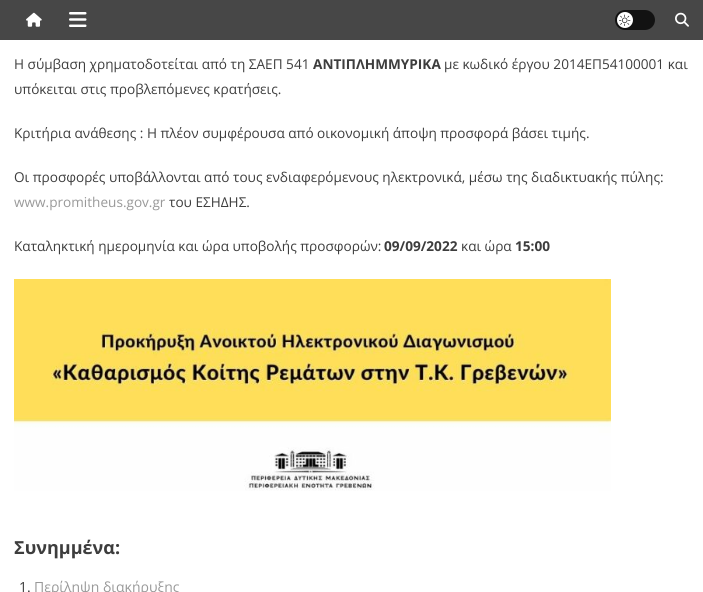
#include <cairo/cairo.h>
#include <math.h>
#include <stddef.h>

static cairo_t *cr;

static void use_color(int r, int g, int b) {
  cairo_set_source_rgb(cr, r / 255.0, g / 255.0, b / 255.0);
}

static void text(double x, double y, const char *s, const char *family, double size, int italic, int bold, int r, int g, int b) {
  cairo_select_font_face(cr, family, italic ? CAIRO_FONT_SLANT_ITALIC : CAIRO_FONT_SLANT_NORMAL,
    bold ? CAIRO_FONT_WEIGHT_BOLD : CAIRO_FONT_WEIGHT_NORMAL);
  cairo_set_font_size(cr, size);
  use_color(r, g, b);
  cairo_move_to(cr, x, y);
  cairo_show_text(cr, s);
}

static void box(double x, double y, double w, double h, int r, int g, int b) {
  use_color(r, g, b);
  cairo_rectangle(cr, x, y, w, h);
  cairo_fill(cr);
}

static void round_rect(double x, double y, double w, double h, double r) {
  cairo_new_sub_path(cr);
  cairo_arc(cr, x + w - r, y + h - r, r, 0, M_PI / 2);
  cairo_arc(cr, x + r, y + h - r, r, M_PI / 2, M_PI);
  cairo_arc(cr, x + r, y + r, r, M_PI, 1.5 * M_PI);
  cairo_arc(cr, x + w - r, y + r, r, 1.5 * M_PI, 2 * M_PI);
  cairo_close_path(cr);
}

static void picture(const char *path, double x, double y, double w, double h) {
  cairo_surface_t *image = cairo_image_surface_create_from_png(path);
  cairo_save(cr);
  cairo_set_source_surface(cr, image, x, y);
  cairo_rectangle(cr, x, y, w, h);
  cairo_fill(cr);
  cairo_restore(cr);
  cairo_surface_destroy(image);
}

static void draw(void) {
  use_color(255, 255, 255);
  cairo_paint(cr);
  box(0, 0, 703, 40, 71, 71, 71);
  picture("img_01.png", 26, 12, 16, 15);
  picture("img_02.png", 69, 12, 18, 15);
  use_color(18, 18, 18);
  round_rect(615, 10, 40, 20, 10);
  cairo_fill(cr);
  use_color(255, 255, 255);
  cairo_arc(cr, 625, 20, 8, 0, 2 * M_PI);
  cairo_fill(cr);
  picture("img_03.png", 619, 14, 12, 12);
  picture("img_04.png", 675, 12, 14, 15);
  picture("img_05.png", 14, 279, 597, 212);
  text(14, 69, "Η σύμβαση χρηματοδοτείται από τη ΣΑΕΠ 541", "Open Sans", 13.6, 0, 0, 61, 61, 61);
  text(313, 69, "ΑΝΤΙΠΛΗΜΜΥΡΙΚΑ", "Open Sans", 13.6, 0, 1, 61, 61, 61);
  text(444, 69, "με κωδικό έργου 2014ΕΠ54100001 και", "Open Sans", 13.6, 0, 0, 61, 61, 61);
  text(14, 94, "υπόκειται στις προβλεπόμενες κρατήσεις.", "Open Sans", 13.6, 0, 0, 61, 61, 61);
  text(14, 138, "Κριτήρια ανάθεσης : Η πλέον συμφέρουσα από οικονομική άποψη προσφορά βάσει τιμής.", "Open Sans", 13.6, 0, 0, 61, 61, 61);
  text(14, 182, "Οι προσφορές υποβάλλονται από τους ενδιαφερόμενους ηλεκτρονικά, μέσω της διαδικτυακής πύλης:", "Open Sans", 13.6, 0, 0, 61, 61, 61);
  text(14, 207, "www.promitheus.gov.gr", "Open Sans", 13.6, 0, 0, 153, 153, 153);
  text(169, 207, "του ΕΣΗΔΗΣ.", "Open Sans", 13.6, 0, 0, 61, 61, 61);
  text(14, 251, "Καταληκτική ημερομηνία και ώρα υποβολής προσφορών:", "Open Sans", 13.6, 0, 0, 61, 61, 61);
  text(384, 251, "09/09/2022", "Open Sans", 13.6, 0, 1, 61, 61, 61);
  text(461, 251, "και ώρα", "Open Sans", 13.6, 0, 0, 61, 61, 61);
  text(515, 251, "15:00", "Open Sans", 13.6, 0, 1, 61, 61, 61);
  text(14, 554, "Συνημμένα:", "Open Sans", 18, 0, 1, 61, 61, 61);
  text(19, 592, "1.", "Open Sans", 14, 0, 0, 61, 61, 61);
  text(34, 592, "Περίληψη διακήρυξης", "Open Sans", 14, 0, 0, 153, 153, 153);
}

int main(void) {
  cairo_surface_t *surface = cairo_image_surface_create(CAIRO_FORMAT_RGB24, 703, 592);
  cr = cairo_create(surface);
  cairo_font_options_t *options = cairo_font_options_create();
  cairo_font_options_set_hint_metrics(options, CAIRO_HINT_METRICS_OFF);
  cairo_font_options_set_hint_style(options, CAIRO_HINT_STYLE_NONE);
  cairo_set_font_options(cr, options);
  cairo_set_miter_limit(cr, 4);
  draw();
  cairo_surface_write_to_png(surface, "out.png");
  cairo_font_options_destroy(options);
  cairo_destroy(cr);
  cairo_surface_destroy(surface);
  return 0;
}
